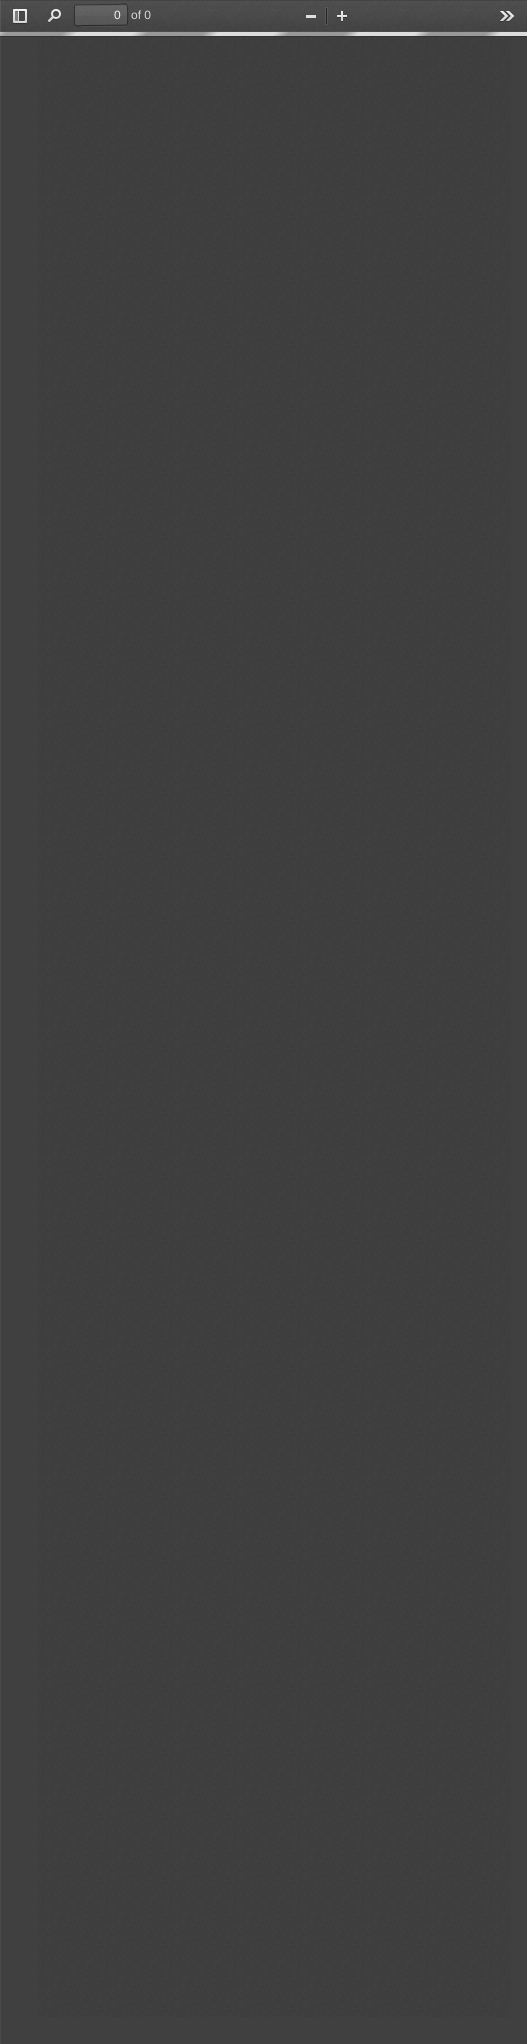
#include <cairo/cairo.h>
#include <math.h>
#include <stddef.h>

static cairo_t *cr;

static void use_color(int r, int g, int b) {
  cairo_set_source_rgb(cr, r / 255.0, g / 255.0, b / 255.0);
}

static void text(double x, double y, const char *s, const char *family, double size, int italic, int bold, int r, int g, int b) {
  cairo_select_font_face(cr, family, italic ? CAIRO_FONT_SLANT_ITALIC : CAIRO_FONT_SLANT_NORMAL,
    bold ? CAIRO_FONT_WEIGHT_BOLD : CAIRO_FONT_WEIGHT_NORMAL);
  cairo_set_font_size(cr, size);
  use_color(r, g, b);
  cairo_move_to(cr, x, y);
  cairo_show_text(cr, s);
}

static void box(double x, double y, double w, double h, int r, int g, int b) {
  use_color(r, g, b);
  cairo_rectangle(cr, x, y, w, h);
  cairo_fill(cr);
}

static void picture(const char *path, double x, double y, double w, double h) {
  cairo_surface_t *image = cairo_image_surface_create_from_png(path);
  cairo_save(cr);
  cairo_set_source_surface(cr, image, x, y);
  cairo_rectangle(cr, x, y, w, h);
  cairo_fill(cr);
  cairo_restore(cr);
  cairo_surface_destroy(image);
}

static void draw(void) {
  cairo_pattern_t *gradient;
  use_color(64, 64, 64);
  cairo_paint(cr);
  picture("img_01.png", 38, 17, 473, 2000);
  picture("img_02.png", 0, 0, 527, 32);
  cairo_set_source_rgba(cr, 1, 1, 1, 0.05);
  cairo_rectangle(cr, 0, 31, 527, 1);
  cairo_fill(cr);
  cairo_set_source_rgba(cr, 0, 0, 0, 0.15);
  cairo_rectangle(cr, 0, 0, 527, 1);
  cairo_fill(cr);
  cairo_set_source_rgba(cr, 1, 1, 1, 0.08);
  cairo_rectangle(cr, 0, 0, 1, 32);
  cairo_fill(cr);
  picture("img_03.png", 13, 9, 14, 15);
  picture("img_04.png", 48, 9, 13, 14);
  cairo_set_source_rgba(cr, 1, 1, 1, 0.05);
  cairo_new_path(cr);
  cairo_move_to(cr, 74, 24);
  cairo_curve_to(cr, 74, 29, 80, 27, 84, 27);
  cairo_line_to(cr, 118, 27);
  cairo_curve_to(cr, 122, 27, 128, 29, 128, 24);
  cairo_line_to(cr, 127, 26);
  cairo_line_to(cr, 75, 26);
  cairo_close_path(cr);
  cairo_fill(cr);
  cairo_set_source_rgba(cr, 1, 1, 1, 0.09);
  cairo_rectangle(cr, 75, 5, 52, 20);
  cairo_fill(cr);
  gradient = cairo_pattern_create_linear(101, 5, 101, 25);
  cairo_pattern_add_color_stop_rgba(gradient, 0, 1, 1, 1, 0.05);
  cairo_pattern_add_color_stop_rgba(gradient, 1, 1, 1, 1, 0);
  cairo_set_source(cr, gradient);
  cairo_pattern_destroy(gradient);
  cairo_rectangle(cr, 75, 5, 52, 11);
  cairo_fill(cr);
  cairo_set_source_rgba(cr, 0, 0, 0, 0.05);
  cairo_new_path(cr);
  cairo_move_to(cr, 76, 6);
  cairo_line_to(cr, 126, 6);
  cairo_curve_to(cr, 127, 6, 127, 6, 127, 7);
  cairo_curve_to(cr, 127, 3, 122, 5, 118, 5);
  cairo_line_to(cr, 84, 5);
  cairo_curve_to(cr, 80, 5, 75, 3, 75, 7);
  cairo_curve_to(cr, 75, 6, 75, 6, 76, 6);
  cairo_close_path(cr);
  cairo_fill(cr);
  cairo_new_path(cr);
  cairo_move_to(cr, 75, 5);
  cairo_line_to(cr, 117.5, 4.5);
  cairo_curve_to(cr, 121, 4.5, 125, 2.5, 127, 5);
  cairo_set_source_rgba(cr, 0, 0, 0, 0.32);
  cairo_set_line_width(cr, 1);
  cairo_stroke(cr);
  cairo_new_path(cr);
  cairo_move_to(cr, 127, 5);
  cairo_curve_to(cr, 128, 5.5, 128, 24.5, 127, 25);
  cairo_set_source_rgba(cr, 0, 0, 0, 0.38);
  cairo_stroke(cr);
  cairo_new_path(cr);
  cairo_move_to(cr, 127, 25);
  cairo_line_to(cr, 84.5, 25.5);
  cairo_curve_to(cr, 81, 25.5, 77, 27.5, 75, 25);
  cairo_set_source_rgba(cr, 0, 0, 0, 0.42);
  cairo_stroke(cr);
  cairo_new_path(cr);
  cairo_move_to(cr, 75, 25);
  cairo_curve_to(cr, 74, 24.5, 74, 5.5, 75, 5);
  cairo_set_source_rgba(cr, 0, 0, 0, 0.38);
  cairo_stroke(cr);
  cairo_set_source_rgba(cr, 1, 1, 1, 0.82);
  cairo_rectangle(cr, 306, 15, 10, 3);
  cairo_fill(cr);
  cairo_rectangle(cr, 325.5, 7.5, 2, 17);
  cairo_set_source_rgba(cr, 1, 1, 1, 0.08);
  cairo_stroke(cr);
  cairo_set_source_rgba(cr, 0, 0, 0, 0.5);
  cairo_rectangle(cr, 326, 8, 1, 16);
  cairo_fill(cr);
  picture("img_05.png", 337, 11, 10, 11);
  picture("img_06.png", 500, 11, 15, 11);
  box(0, 32, 1, 2012, 74, 74, 74);
  box(0, 36, 527, 1, 51, 51, 51);
  gradient = cairo_pattern_create_linear(168, -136, 522, 217);
  cairo_pattern_add_color_stop_rgba(gradient, 0, 0.733, 0.733, 0.733, 1);
  cairo_pattern_add_color_stop_rgba(gradient, 0.01, 0.6, 0.6, 0.6, 1);
  cairo_pattern_add_color_stop_rgba(gradient, 0.09, 0.6, 0.6, 0.6, 1);
  cairo_pattern_add_color_stop_rgba(gradient, 0.11, 0.867, 0.867, 0.867, 1);
  cairo_pattern_add_color_stop_rgba(gradient, 0.19, 0.867, 0.867, 0.867, 1);
  cairo_pattern_add_color_stop_rgba(gradient, 0.2, 0.733, 0.733, 0.733, 1);
  cairo_pattern_add_color_stop_rgba(gradient, 0.21, 0.6, 0.6, 0.6, 1);
  cairo_pattern_add_color_stop_rgba(gradient, 0.29, 0.6, 0.6, 0.6, 1);
  cairo_pattern_add_color_stop_rgba(gradient, 0.31, 0.867, 0.867, 0.867, 1);
  cairo_pattern_add_color_stop_rgba(gradient, 0.39, 0.867, 0.867, 0.867, 1);
  cairo_pattern_add_color_stop_rgba(gradient, 0.4, 0.733, 0.733, 0.733, 1);
  cairo_pattern_add_color_stop_rgba(gradient, 0.41, 0.6, 0.6, 0.6, 1);
  cairo_pattern_add_color_stop_rgba(gradient, 0.49, 0.6, 0.6, 0.6, 1);
  cairo_pattern_add_color_stop_rgba(gradient, 0.51, 0.867, 0.867, 0.867, 1);
  cairo_pattern_add_color_stop_rgba(gradient, 0.59, 0.867, 0.867, 0.867, 1);
  cairo_pattern_add_color_stop_rgba(gradient, 0.6, 0.733, 0.733, 0.733, 1);
  cairo_pattern_add_color_stop_rgba(gradient, 0.61, 0.6, 0.6, 0.6, 1);
  cairo_pattern_add_color_stop_rgba(gradient, 0.69, 0.6, 0.6, 0.6, 1);
  cairo_pattern_add_color_stop_rgba(gradient, 0.71, 0.867, 0.867, 0.867, 1);
  cairo_pattern_add_color_stop_rgba(gradient, 0.79, 0.867, 0.867, 0.867, 1);
  cairo_pattern_add_color_stop_rgba(gradient, 0.8, 0.733, 0.733, 0.733, 1);
  cairo_pattern_add_color_stop_rgba(gradient, 0.81, 0.6, 0.6, 0.6, 1);
  cairo_pattern_add_color_stop_rgba(gradient, 0.89, 0.6, 0.6, 0.6, 1);
  cairo_pattern_add_color_stop_rgba(gradient, 0.91, 0.867, 0.867, 0.867, 1);
  cairo_pattern_add_color_stop_rgba(gradient, 0.99, 0.867, 0.867, 0.867, 1);
  cairo_pattern_add_color_stop_rgba(gradient, 1, 0.733, 0.733, 0.733, 1);
  cairo_set_source(cr, gradient);
  cairo_pattern_destroy(gradient);
  cairo_rectangle(cr, 0, 32, 527, 4);
  cairo_fill(cr);
  text(114, 19, "0", "Liberation Sans", 12, 0, 0, 242, 242, 242);
  text(131, 19, "of 0", "Liberation Sans", 12, 0, 0, 217, 217, 217);
}

int main(void) {
  cairo_surface_t *surface = cairo_image_surface_create(CAIRO_FORMAT_RGB24, 527, 2044);
  cr = cairo_create(surface);
  cairo_font_options_t *options = cairo_font_options_create();
  cairo_font_options_set_hint_metrics(options, CAIRO_HINT_METRICS_OFF);
  cairo_font_options_set_hint_style(options, CAIRO_HINT_STYLE_NONE);
  cairo_set_font_options(cr, options);
  cairo_set_miter_limit(cr, 4);
  draw();
  cairo_surface_write_to_png(surface, "out.png");
  cairo_font_options_destroy(options);
  cairo_destroy(cr);
  cairo_surface_destroy(surface);
  return 0;
}
